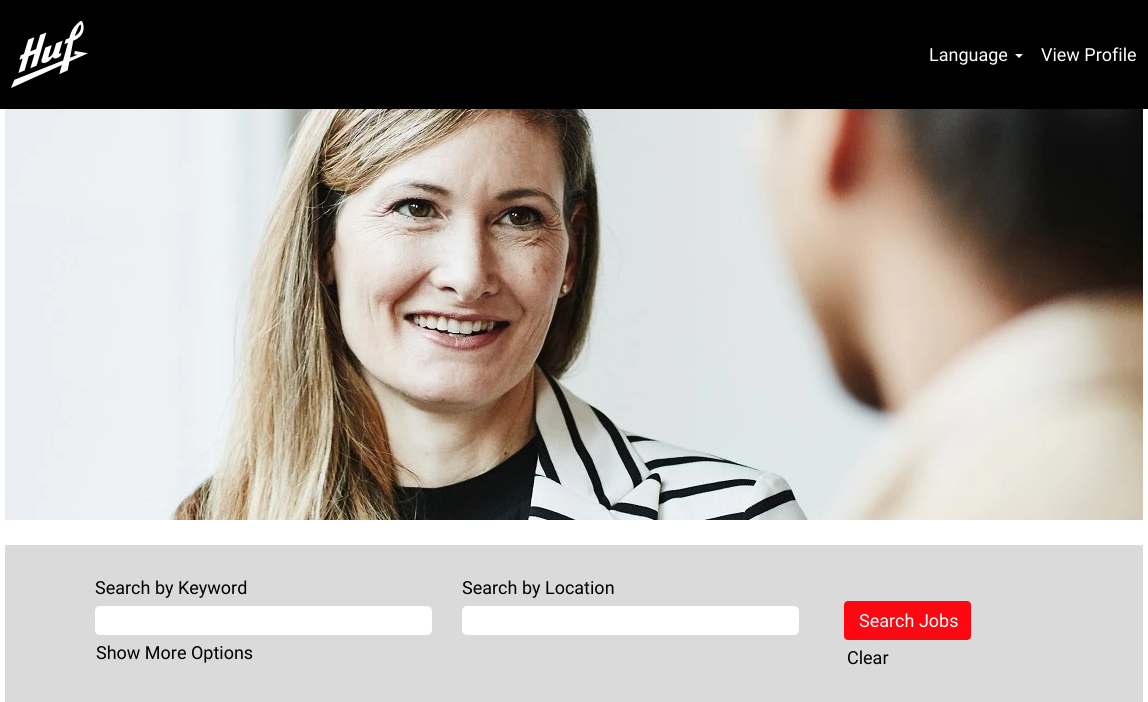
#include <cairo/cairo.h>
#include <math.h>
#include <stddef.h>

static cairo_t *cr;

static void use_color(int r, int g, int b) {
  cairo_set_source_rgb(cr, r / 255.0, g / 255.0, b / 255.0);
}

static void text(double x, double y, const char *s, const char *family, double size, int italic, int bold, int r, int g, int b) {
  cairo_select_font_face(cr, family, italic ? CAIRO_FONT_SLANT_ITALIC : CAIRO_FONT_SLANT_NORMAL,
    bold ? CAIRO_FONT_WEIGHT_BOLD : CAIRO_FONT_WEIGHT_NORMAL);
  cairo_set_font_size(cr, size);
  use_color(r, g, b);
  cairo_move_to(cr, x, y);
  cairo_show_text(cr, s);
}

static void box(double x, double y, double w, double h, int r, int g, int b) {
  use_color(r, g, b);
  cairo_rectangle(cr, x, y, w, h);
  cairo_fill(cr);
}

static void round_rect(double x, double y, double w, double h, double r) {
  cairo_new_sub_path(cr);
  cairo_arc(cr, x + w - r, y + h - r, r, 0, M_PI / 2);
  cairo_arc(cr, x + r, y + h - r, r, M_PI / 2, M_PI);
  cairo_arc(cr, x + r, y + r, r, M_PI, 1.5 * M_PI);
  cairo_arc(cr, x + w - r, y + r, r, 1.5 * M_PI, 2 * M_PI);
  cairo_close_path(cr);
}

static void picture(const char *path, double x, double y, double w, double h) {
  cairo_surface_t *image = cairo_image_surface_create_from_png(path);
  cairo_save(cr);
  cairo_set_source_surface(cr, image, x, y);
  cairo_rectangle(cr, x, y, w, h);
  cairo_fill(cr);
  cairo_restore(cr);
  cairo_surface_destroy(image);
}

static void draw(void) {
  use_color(255, 255, 255);
  cairo_paint(cr);
  box(0, 0, 1148, 109, 0, 0, 0);
  picture("img_01.png", 11, 21, 77, 67);
  use_color(255, 255, 255);
  cairo_new_path(cr);
  cairo_move_to(cr, 1015, 54);
  cairo_line_to(cr, 1023, 54);
  cairo_line_to(cr, 1019, 58);
  cairo_close_path(cr);
  cairo_fill(cr);
  picture("img_02.png", 5, 109, 1138, 411);
  box(5, 545, 1138, 157, 218, 218, 218);
  use_color(255, 255, 255);
  round_rect(95, 606, 337, 29, 5);
  cairo_fill(cr);
  round_rect(462, 606, 337, 29, 5);
  cairo_fill(cr);
  use_color(255, 6, 19);
  round_rect(844, 601, 127, 39, 4);
  cairo_fill(cr);
  text(929, 61, "Language", "Roboto", 18, 0, 0, 255, 255, 255);
  text(1041, 61, "View Profile", "Roboto", 18, 0, 0, 255, 255, 255);
  text(95, 594, "Search by Keyword", "Roboto", 18, 0, 0, 0, 0, 0);
  text(462, 594, "Search by Location", "Roboto", 18, 0, 0, 0, 0, 0);
  text(96, 659, "Show More Options", "Roboto", 18, 0, 0, 0, 0, 0);
  text(859, 627, "Search Jobs", "Roboto", 18, 0, 0, 255, 255, 255);
  text(847, 664, "Clear", "Roboto", 18, 0, 0, 0, 0, 0);
}

int main(void) {
  cairo_surface_t *surface = cairo_image_surface_create(CAIRO_FORMAT_RGB24, 1148, 702);
  cr = cairo_create(surface);
  cairo_font_options_t *options = cairo_font_options_create();
  cairo_font_options_set_hint_metrics(options, CAIRO_HINT_METRICS_OFF);
  cairo_font_options_set_hint_style(options, CAIRO_HINT_STYLE_NONE);
  cairo_set_font_options(cr, options);
  cairo_set_miter_limit(cr, 4);
  draw();
  cairo_surface_write_to_png(surface, "out.png");
  cairo_font_options_destroy(options);
  cairo_destroy(cr);
  cairo_surface_destroy(surface);
  return 0;
}
